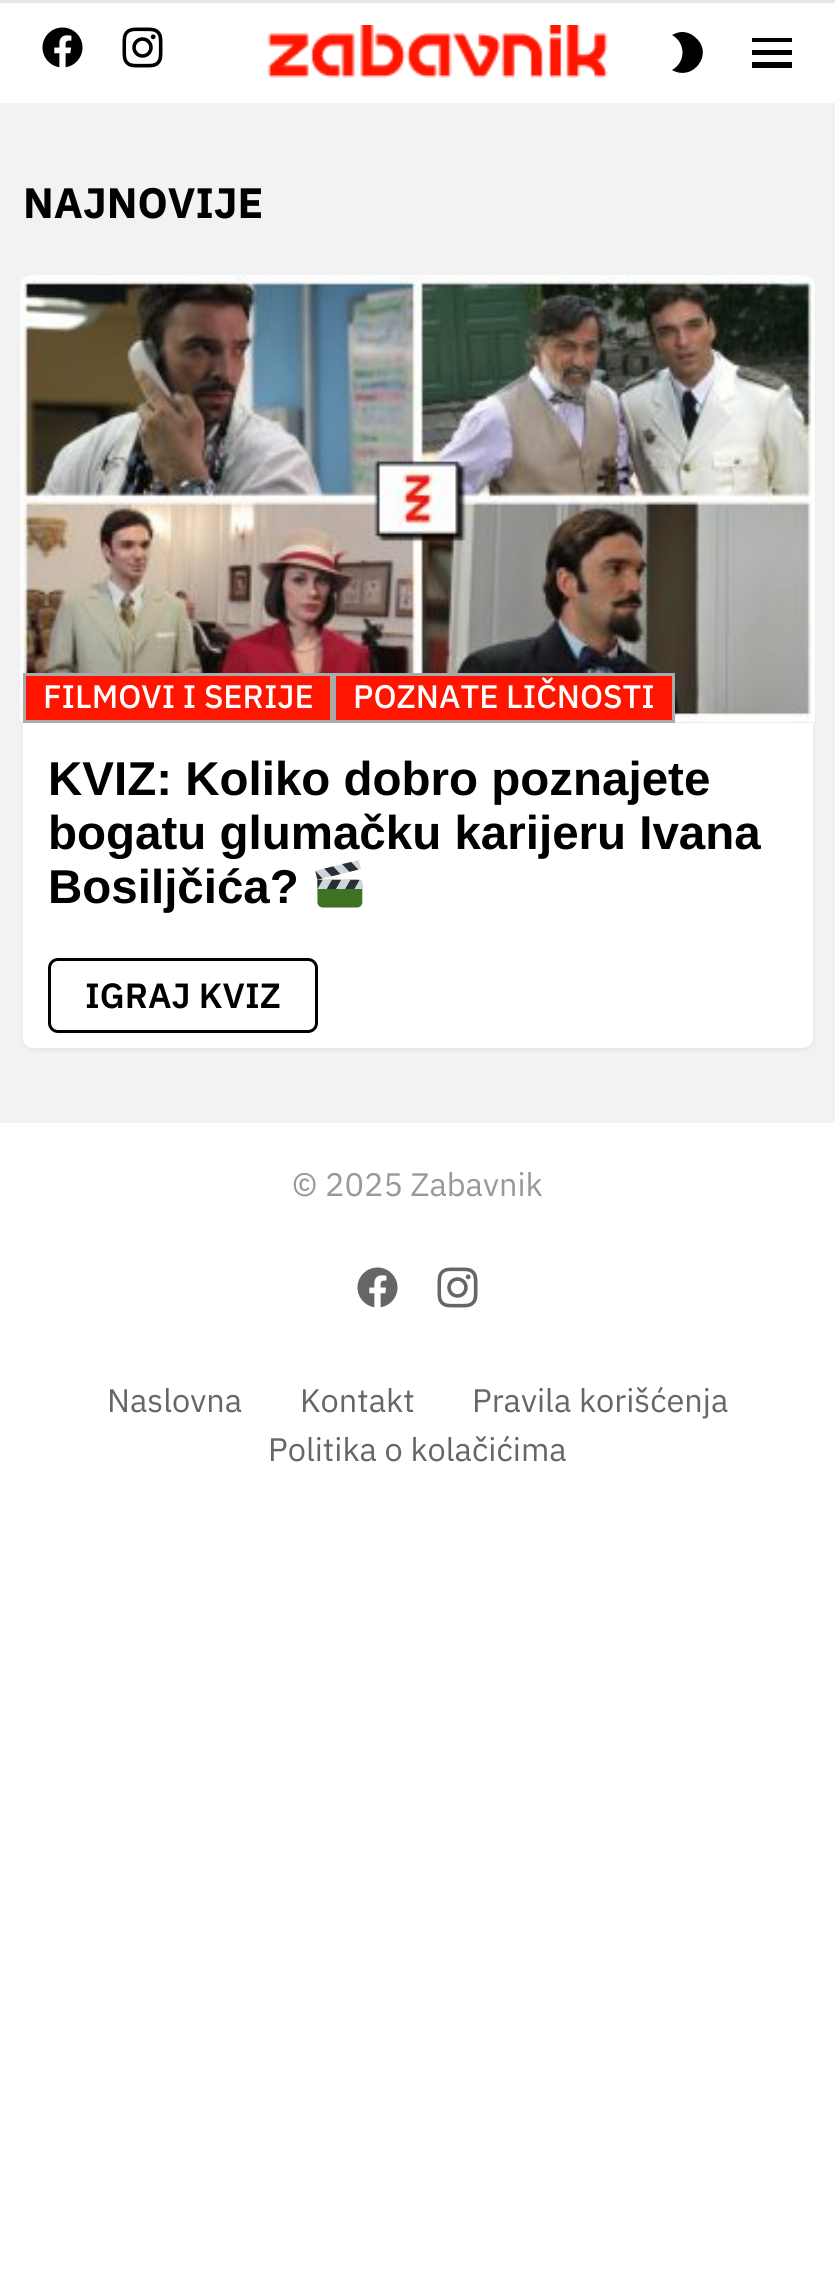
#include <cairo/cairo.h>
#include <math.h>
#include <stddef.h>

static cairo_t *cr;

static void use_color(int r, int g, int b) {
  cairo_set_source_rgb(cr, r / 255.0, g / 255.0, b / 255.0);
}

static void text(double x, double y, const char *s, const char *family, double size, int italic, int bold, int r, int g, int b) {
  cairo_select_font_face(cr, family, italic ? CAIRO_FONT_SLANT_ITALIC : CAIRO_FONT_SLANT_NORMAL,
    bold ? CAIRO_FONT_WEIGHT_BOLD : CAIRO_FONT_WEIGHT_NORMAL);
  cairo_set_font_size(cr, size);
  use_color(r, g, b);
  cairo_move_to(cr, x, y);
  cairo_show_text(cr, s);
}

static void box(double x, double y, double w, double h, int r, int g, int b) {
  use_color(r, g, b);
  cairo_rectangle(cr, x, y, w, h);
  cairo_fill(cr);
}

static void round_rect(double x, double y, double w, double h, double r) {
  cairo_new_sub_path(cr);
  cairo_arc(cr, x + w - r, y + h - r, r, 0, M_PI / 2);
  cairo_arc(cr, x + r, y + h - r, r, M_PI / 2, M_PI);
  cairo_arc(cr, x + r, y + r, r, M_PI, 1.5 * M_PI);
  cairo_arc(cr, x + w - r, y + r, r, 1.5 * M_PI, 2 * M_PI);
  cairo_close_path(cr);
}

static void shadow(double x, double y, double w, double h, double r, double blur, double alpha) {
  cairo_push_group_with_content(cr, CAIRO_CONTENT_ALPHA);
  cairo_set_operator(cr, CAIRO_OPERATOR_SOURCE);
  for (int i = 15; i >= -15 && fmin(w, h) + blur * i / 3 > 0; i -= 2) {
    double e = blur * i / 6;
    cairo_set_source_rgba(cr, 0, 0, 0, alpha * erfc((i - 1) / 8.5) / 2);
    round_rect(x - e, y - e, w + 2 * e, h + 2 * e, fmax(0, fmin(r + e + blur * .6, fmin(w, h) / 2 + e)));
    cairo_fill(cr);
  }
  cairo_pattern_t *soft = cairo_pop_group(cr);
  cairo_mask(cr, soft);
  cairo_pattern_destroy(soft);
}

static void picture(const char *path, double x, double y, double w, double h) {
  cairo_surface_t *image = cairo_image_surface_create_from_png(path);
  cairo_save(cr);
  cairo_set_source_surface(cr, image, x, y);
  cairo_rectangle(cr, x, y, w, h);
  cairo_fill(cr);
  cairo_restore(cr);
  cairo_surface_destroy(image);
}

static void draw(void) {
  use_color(255, 255, 255);
  cairo_paint(cr);
  box(0, 0, 835, 3, 230, 230, 230);
  picture("img_01.png", 42, 27, 41, 41);
  picture("img_02.png", 122, 27, 41, 41);
  picture("img_03.png", 267, 25, 341, 53);
  use_color(0, 0, 0);
  cairo_new_path(cr);
  cairo_move_to(cr, 682, 32);
  cairo_curve_to(cr, 679, 32, 676, 33, 672, 35);
  cairo_curve_to(cr, 686, 43, 686, 62, 672, 70);
  cairo_curve_to(cr, 693, 82, 714, 54, 696, 38);
  cairo_curve_to(cr, 692, 34, 687, 32, 682, 32);
  cairo_close_path(cr);
  cairo_fill(cr);
  cairo_new_path(cr);
  cairo_move_to(cr, 752, 38);
  cairo_line_to(cr, 792, 38);
  cairo_line_to(cr, 792, 42);
  cairo_line_to(cr, 752, 42);
  cairo_close_path(cr);
  cairo_move_to(cr, 752, 50);
  cairo_line_to(cr, 792, 50);
  cairo_line_to(cr, 792, 55);
  cairo_line_to(cr, 752, 55);
  cairo_close_path(cr);
  cairo_move_to(cr, 752, 62);
  cairo_line_to(cr, 792, 62);
  cairo_line_to(cr, 792, 68);
  cairo_line_to(cr, 752, 68);
  cairo_close_path(cr);
  cairo_fill(cr);
  box(0, 103, 835, 1020, 242, 242, 242);
  use_color(0, 0, 0);
  shadow(23, 280, 790, 770, 10, 2.5, 0.07);
  use_color(255, 255, 255);
  round_rect(23, 278, 790, 770, 10);
  cairo_fill(cr);
  use_color(230, 230, 230);
  cairo_new_path(cr);
  cairo_move_to(cr, 30, 275);
  cairo_line_to(cr, 805, 275);
  cairo_curve_to(cr, 810.5, 275, 815, 279.5, 815, 285);
  cairo_line_to(cr, 815, 723);
  cairo_line_to(cr, 20, 723);
  cairo_line_to(cr, 20, 285);
  cairo_curve_to(cr, 20, 279.5, 24.5, 275, 30, 275);
  cairo_close_path(cr);
  cairo_fill(cr);
  picture("img_04.png", 20, 275, 795, 448);
  use_color(255, 21, 0);
  cairo_rectangle(cr, 24.5, 674.5, 307, 47);
  cairo_fill_preserve(cr);
  use_color(170, 170, 170);
  cairo_set_line_width(cr, 3);
  cairo_stroke(cr);
  use_color(255, 21, 0);
  cairo_rectangle(cr, 334.5, 674.5, 339, 47);
  cairo_fill_preserve(cr);
  use_color(170, 170, 170);
  cairo_stroke(cr);
  picture("img_05.png", 315, 860, 48, 48);
  round_rect(49.5, 959.5, 267, 72, 8.5);
  use_color(0, 0, 0);
  cairo_stroke(cr);
  picture("img_06.png", 357, 1267, 41, 41);
  picture("img_07.png", 437, 1267, 41, 41);
  text(23, 218, "NAJNOVIJE", "IBM Plex Sans", 42.5, 0, 1, 0, 0, 0);
  text(43, 708, "FILMOVI I SERIJE", "IBM Plex Sans Medium", 32.5, 0, 0, 255, 255, 255);
  text(353, 708, "POZNATE LIČNOSTI", "IBM Plex Sans Medium", 32.5, 0, 0, 255, 255, 255);
  text(48, 795, "KVIZ: Koliko dobro poznajete", "Liberation Sans", 47.5, 0, 1, 0, 0, 0);
  text(48, 849, "bogatu glumačku karijeru Ivana", "Liberation Sans", 47.5, 0, 1, 0, 0, 0);
  text(48, 903, "Bosiljčića?", "Liberation Sans", 47.5, 0, 1, 0, 0, 0);
  text(85, 1008, "IGRAJ KVIZ", "IBM Plex Sans SemiBold", 35, 0, 0, 0, 0, 0);
  text(292, 1196, "© 2025 Zabavnik", "IBM Plex Sans", 32.5, 0, 0, 153, 153, 153);
  text(107, 1412, "Naslovna", "IBM Plex Sans", 32.5, 0, 0, 102, 102, 102);
  text(300, 1412, "Kontakt", "IBM Plex Sans", 32.5, 0, 0, 102, 102, 102);
  text(472, 1412, "Pravila korišćenja", "IBM Plex Sans", 32.5, 0, 0, 102, 102, 102);
  text(268, 1461, "Politika o kolačićima", "IBM Plex Sans", 32.5, 0, 0, 102, 102, 102);
}

int main(void) {
  cairo_surface_t *surface = cairo_image_surface_create(CAIRO_FORMAT_RGB24, 835, 2289);
  cr = cairo_create(surface);
  cairo_font_options_t *options = cairo_font_options_create();
  cairo_font_options_set_hint_metrics(options, CAIRO_HINT_METRICS_OFF);
  cairo_font_options_set_hint_style(options, CAIRO_HINT_STYLE_NONE);
  cairo_set_font_options(cr, options);
  cairo_set_miter_limit(cr, 4);
  draw();
  cairo_surface_write_to_png(surface, "out.png");
  cairo_font_options_destroy(options);
  cairo_destroy(cr);
  cairo_surface_destroy(surface);
  return 0;
}
